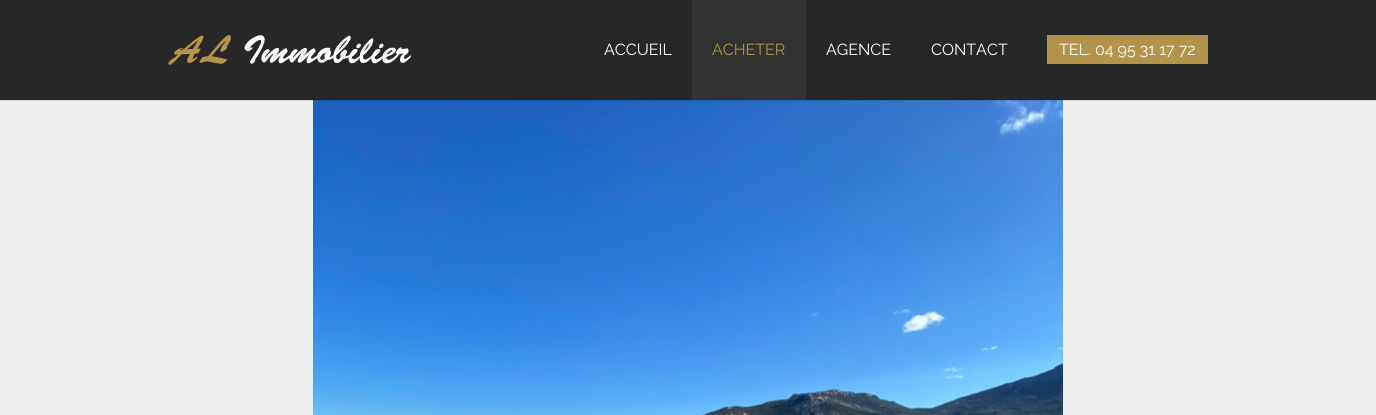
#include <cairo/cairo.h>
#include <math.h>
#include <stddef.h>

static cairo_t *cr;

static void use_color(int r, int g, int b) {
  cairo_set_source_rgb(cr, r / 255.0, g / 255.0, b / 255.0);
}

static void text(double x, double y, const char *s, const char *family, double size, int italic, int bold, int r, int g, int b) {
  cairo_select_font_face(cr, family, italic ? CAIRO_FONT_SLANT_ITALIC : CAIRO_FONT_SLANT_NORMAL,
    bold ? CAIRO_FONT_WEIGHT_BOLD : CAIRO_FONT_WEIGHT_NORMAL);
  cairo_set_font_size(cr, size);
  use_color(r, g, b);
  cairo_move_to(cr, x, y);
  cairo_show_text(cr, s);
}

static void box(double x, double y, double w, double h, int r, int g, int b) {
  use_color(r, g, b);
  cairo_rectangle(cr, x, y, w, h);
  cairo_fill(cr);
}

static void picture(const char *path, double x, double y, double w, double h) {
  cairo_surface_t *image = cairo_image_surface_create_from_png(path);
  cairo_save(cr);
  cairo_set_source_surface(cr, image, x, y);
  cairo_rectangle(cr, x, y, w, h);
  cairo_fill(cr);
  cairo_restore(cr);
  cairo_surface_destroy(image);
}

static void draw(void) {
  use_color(238, 238, 238);
  cairo_paint(cr);
  box(0, 0, 1376, 100, 39, 39, 39);
  picture("img_01.png", 168, 35, 243, 30);
  box(692, 0, 114, 100, 50, 50, 50);
  box(1047, 35, 161, 29, 179, 148, 74);
  picture("img_02.png", 313, 100, 750, 315);
  cairo_set_source_rgba(cr, 0, 0, 0, 0.1);
  cairo_rectangle(cr, 0, 100, 1376, 1);
  cairo_fill(cr);
  text(604, 55, "ACCUEIL", "Raleway", 16, 0, 0, 255, 255, 255);
  text(712, 55, "ACHETER", "Raleway", 16, 0, 0, 179, 148, 74);
  text(826, 55, "AGENCE", "Raleway", 16, 0, 0, 255, 255, 255);
  text(931, 55, "CONTACT", "Raleway", 16, 0, 0, 255, 255, 255);
  text(1059, 55, "TEL. 04 95 31 17 72", "Raleway", 16, 0, 0, 255, 255, 255);
}

int main(void) {
  cairo_surface_t *surface = cairo_image_surface_create(CAIRO_FORMAT_RGB24, 1376, 415);
  cr = cairo_create(surface);
  cairo_font_options_t *options = cairo_font_options_create();
  cairo_font_options_set_hint_metrics(options, CAIRO_HINT_METRICS_OFF);
  cairo_font_options_set_hint_style(options, CAIRO_HINT_STYLE_NONE);
  cairo_set_font_options(cr, options);
  cairo_set_miter_limit(cr, 4);
  draw();
  cairo_surface_write_to_png(surface, "out.png");
  cairo_font_options_destroy(options);
  cairo_destroy(cr);
  cairo_surface_destroy(surface);
  return 0;
}
